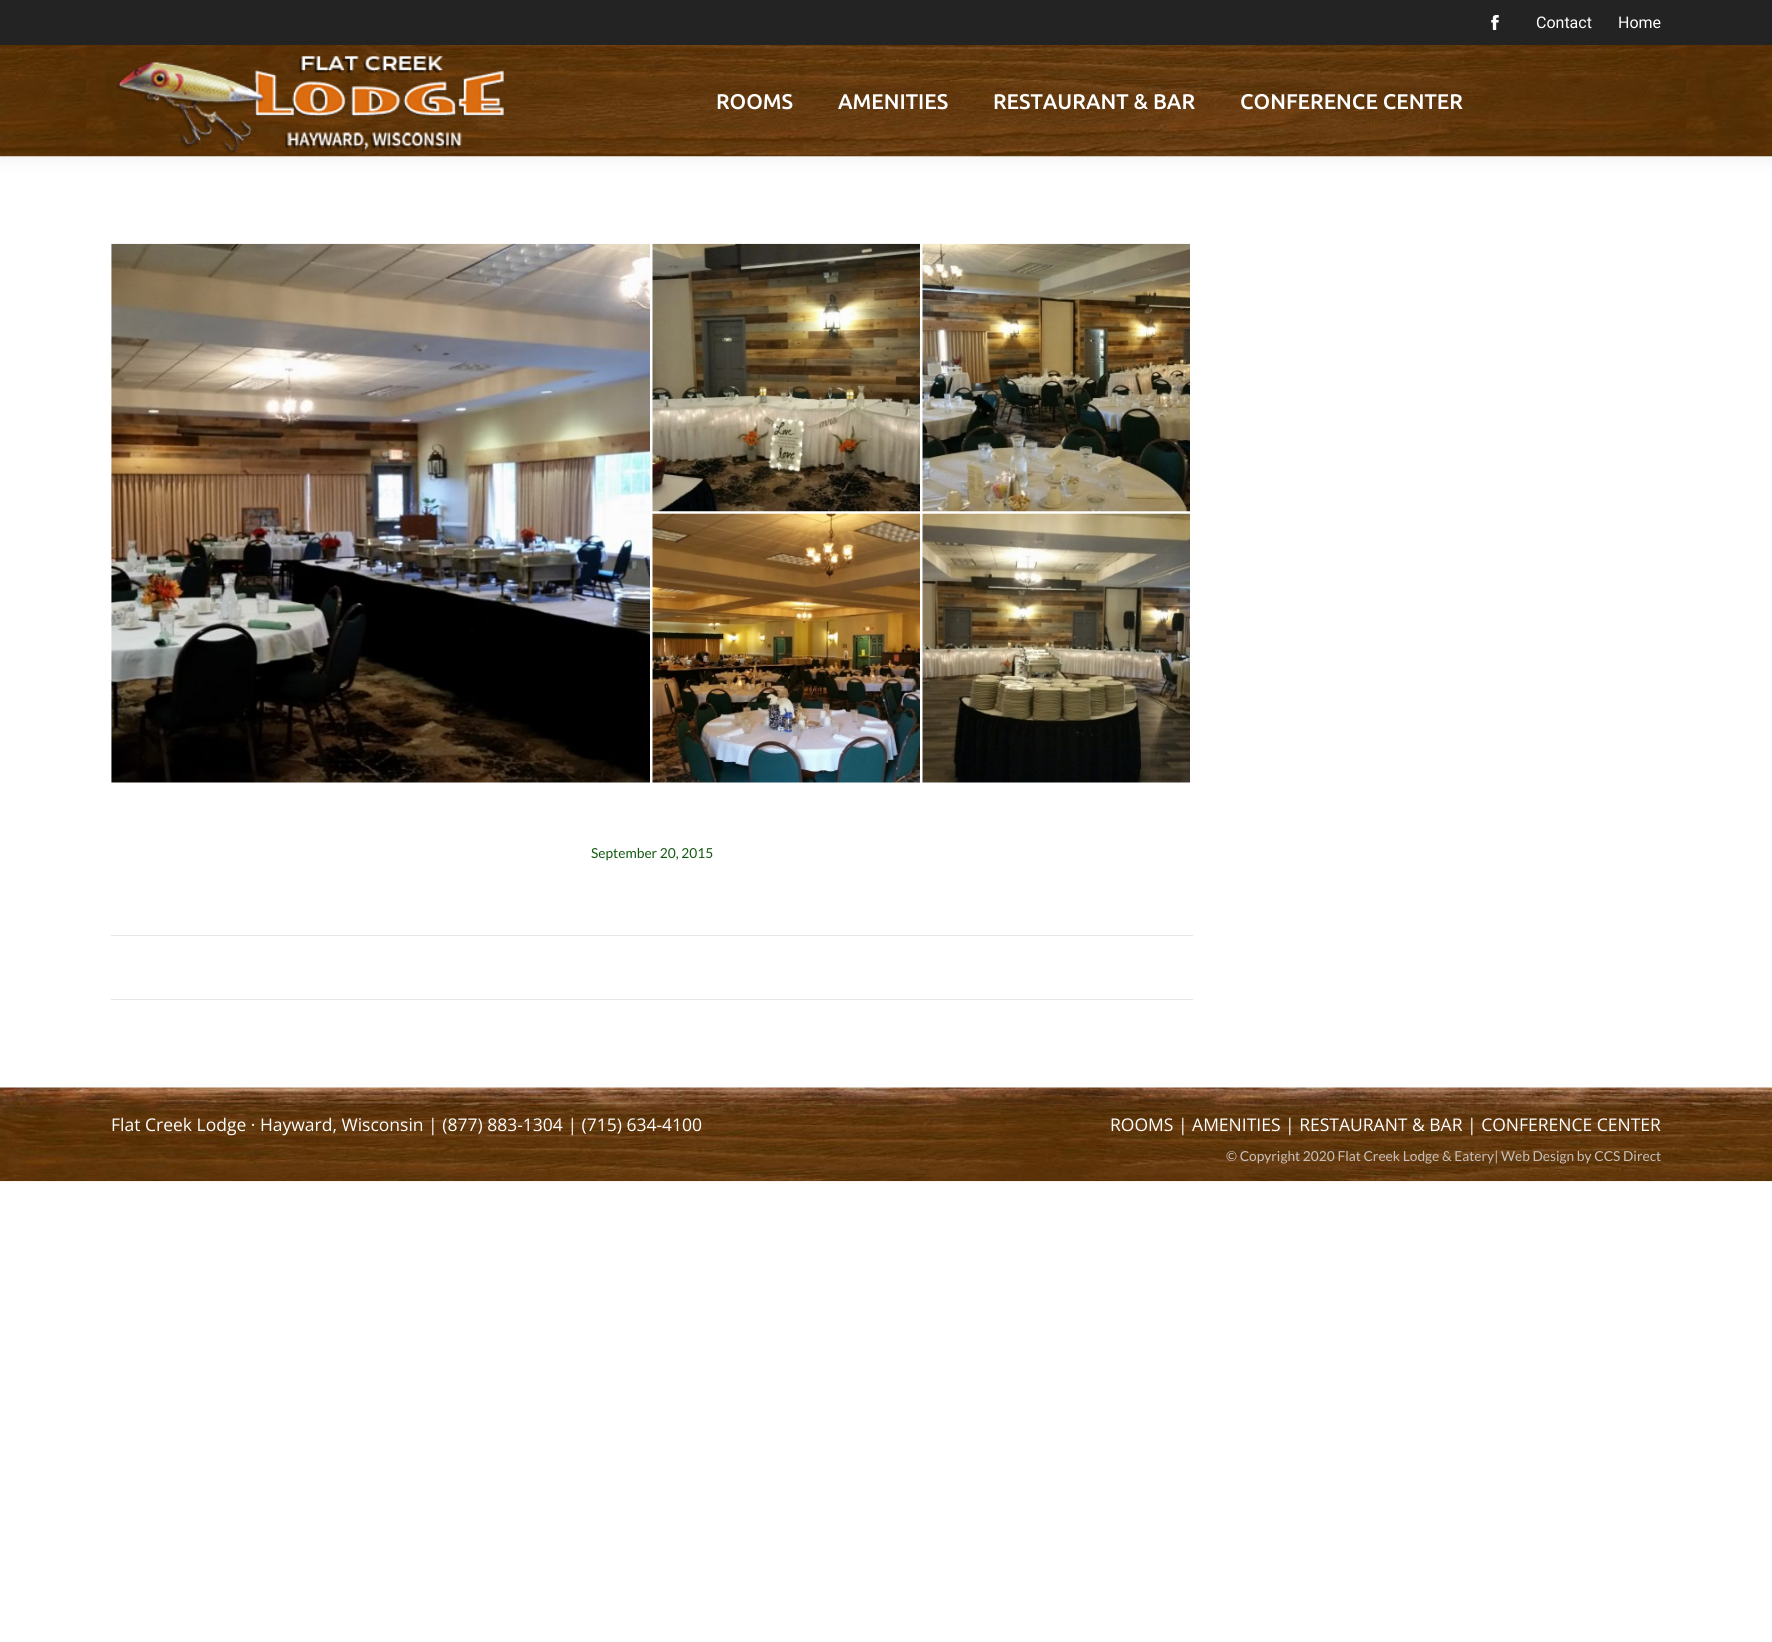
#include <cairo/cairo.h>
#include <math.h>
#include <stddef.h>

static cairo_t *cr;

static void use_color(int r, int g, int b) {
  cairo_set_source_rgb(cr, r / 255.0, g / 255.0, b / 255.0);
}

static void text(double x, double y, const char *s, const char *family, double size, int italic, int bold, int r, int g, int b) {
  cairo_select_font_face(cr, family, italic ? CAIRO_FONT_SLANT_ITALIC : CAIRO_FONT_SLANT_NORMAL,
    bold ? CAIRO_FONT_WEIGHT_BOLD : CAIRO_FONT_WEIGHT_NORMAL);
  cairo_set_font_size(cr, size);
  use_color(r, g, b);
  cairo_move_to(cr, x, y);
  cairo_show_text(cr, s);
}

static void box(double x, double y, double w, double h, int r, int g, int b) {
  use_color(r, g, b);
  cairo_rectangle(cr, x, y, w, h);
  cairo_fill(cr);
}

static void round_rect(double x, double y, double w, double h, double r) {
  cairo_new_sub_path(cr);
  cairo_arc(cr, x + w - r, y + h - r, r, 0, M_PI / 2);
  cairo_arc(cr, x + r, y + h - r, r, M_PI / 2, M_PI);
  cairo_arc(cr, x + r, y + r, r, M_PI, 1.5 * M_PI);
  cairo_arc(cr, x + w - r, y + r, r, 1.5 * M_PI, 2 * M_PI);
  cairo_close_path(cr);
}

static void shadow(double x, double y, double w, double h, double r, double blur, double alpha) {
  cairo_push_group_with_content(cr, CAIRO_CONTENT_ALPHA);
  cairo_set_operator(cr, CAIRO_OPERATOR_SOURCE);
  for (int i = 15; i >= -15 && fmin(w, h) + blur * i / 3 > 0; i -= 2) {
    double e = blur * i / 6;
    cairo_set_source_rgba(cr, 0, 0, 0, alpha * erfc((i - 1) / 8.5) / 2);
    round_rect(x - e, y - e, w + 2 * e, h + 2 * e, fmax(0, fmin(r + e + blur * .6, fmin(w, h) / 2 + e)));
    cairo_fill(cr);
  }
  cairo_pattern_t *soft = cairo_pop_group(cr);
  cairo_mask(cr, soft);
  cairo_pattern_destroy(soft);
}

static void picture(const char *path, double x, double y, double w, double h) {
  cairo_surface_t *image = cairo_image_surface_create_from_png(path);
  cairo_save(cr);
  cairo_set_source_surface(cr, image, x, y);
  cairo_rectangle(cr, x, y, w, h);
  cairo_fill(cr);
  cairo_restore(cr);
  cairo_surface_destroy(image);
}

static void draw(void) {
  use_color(255, 255, 255);
  cairo_paint(cr);
  use_color(0, 0, 0);
  shadow(-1, -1, 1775, 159, 0, 9.5, 0.07);
  picture("img_01.png", 0, 45, 1772, 112);
  box(0, 0, 1772, 45, 35, 35, 35);
  picture("img_02.png", 1491, 15, 8, 15);
  picture("img_03.png", 116, 56, 388, 98);
  picture("img_04.png", 111, 243, 539, 540);
  picture("img_05.png", 652, 243, 268, 269);
  picture("img_06.png", 922, 243, 268, 269);
  picture("img_07.png", 652, 513, 268, 270);
  picture("img_08.png", 922, 513, 268, 270);
  box(111, 935, 1082, 1, 231, 231, 231);
  box(111, 999, 1082, 1, 231, 231, 231);
  picture("img_09.png", 0, 1087, 1772, 95);
  text(1536, 28, "Contact", "Roboto", 16, 0, 0, 255, 255, 255);
  text(1618, 28, "Home", "Roboto", 16, 0, 0, 255, 255, 255);
  text(716, 109, "ROOMS", "Ubuntu Medium", 21.25, 0, 0, 255, 255, 255);
  text(838, 109, "AMENITIES", "Ubuntu Medium", 21.25, 0, 0, 255, 255, 255);
  text(993, 109, "RESTAURANT & BAR", "Ubuntu Medium", 21.25, 0, 0, 255, 255, 255);
  text(1240, 109, "CONFERENCE CENTER", "Ubuntu Medium", 21.25, 0, 0, 255, 255, 255);
  text(591, 858, "September 20, 2015", "Lato", 13.75, 0, 0, 18, 89, 16);
  text(111, 1131, "Flat Creek Lodge · Hayward, Wisconsin | (877) 883-1304 | (715) 634-4100", "Open Sans", 17.5, 0, 0, 255, 255, 255);
  text(1110, 1131, "ROOMS | AMENITIES | RESTAURANT & BAR | CONFERENCE CENTER", "Open Sans", 17.5, 0, 0, 255, 255, 255);
  text(1226, 1161, "© Copyright 2020 Flat Creek Lodge & Eatery| Web Design by CCS Direct", "Lato", 13.75, 0, 0, 200, 193, 187);
}

int main(void) {
  cairo_surface_t *surface = cairo_image_surface_create(CAIRO_FORMAT_RGB24, 1772, 1642);
  cr = cairo_create(surface);
  cairo_font_options_t *options = cairo_font_options_create();
  cairo_font_options_set_hint_metrics(options, CAIRO_HINT_METRICS_OFF);
  cairo_font_options_set_hint_style(options, CAIRO_HINT_STYLE_NONE);
  cairo_set_font_options(cr, options);
  cairo_set_miter_limit(cr, 4);
  draw();
  cairo_surface_write_to_png(surface, "out.png");
  cairo_font_options_destroy(options);
  cairo_destroy(cr);
  cairo_surface_destroy(surface);
  return 0;
}
